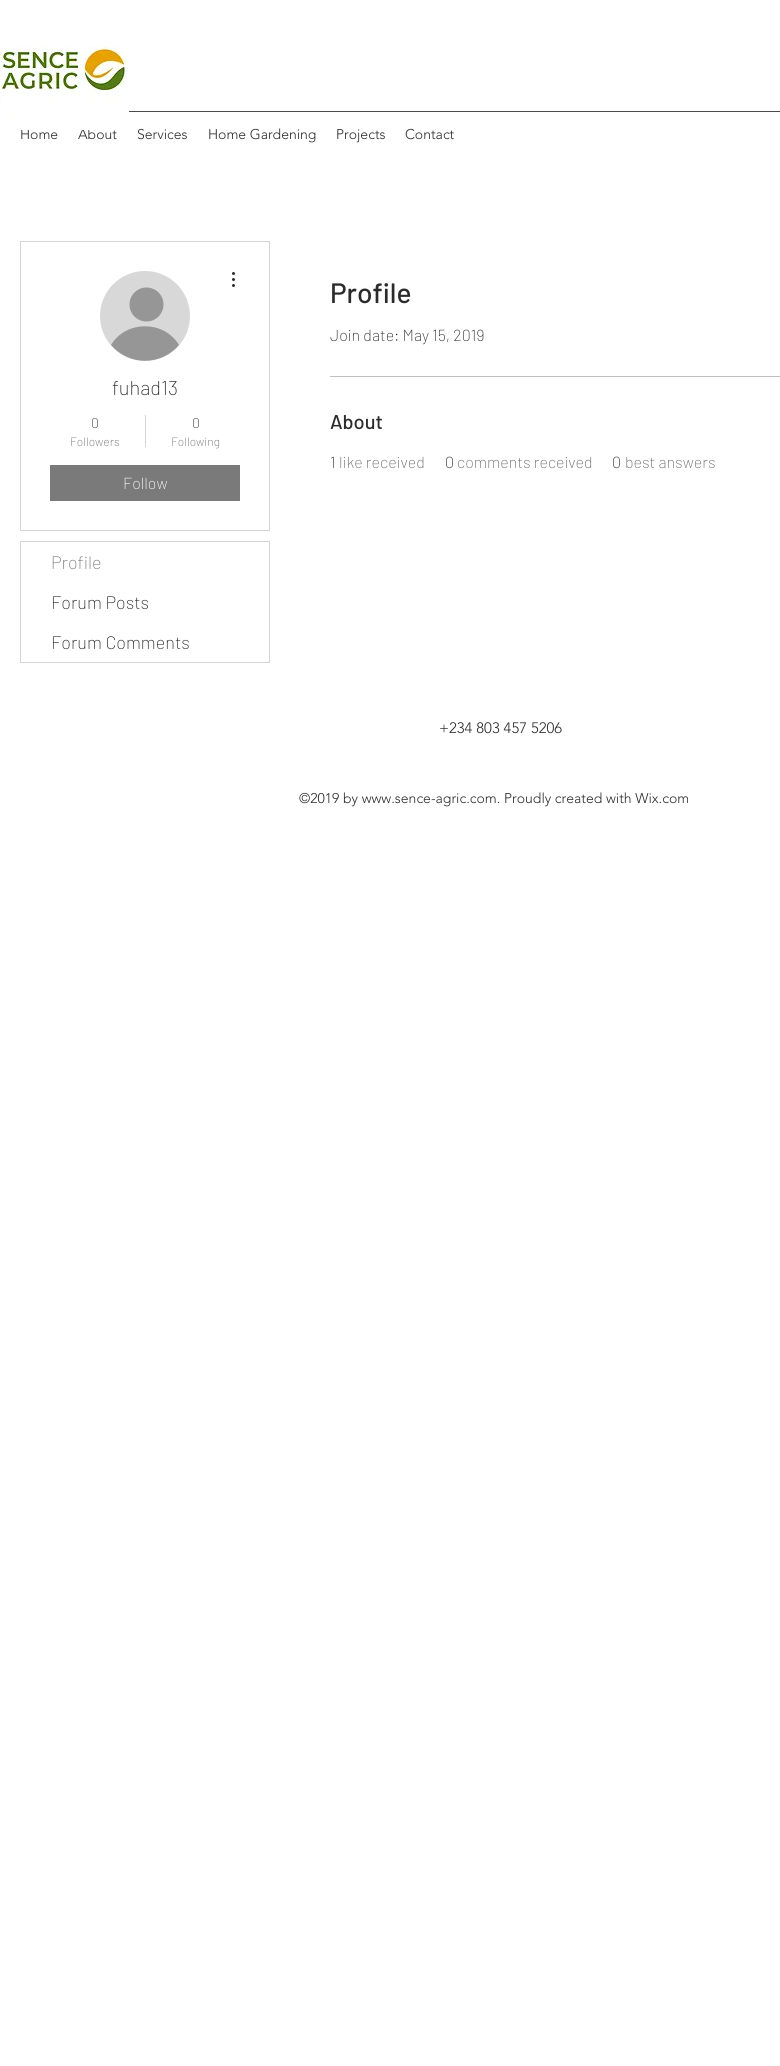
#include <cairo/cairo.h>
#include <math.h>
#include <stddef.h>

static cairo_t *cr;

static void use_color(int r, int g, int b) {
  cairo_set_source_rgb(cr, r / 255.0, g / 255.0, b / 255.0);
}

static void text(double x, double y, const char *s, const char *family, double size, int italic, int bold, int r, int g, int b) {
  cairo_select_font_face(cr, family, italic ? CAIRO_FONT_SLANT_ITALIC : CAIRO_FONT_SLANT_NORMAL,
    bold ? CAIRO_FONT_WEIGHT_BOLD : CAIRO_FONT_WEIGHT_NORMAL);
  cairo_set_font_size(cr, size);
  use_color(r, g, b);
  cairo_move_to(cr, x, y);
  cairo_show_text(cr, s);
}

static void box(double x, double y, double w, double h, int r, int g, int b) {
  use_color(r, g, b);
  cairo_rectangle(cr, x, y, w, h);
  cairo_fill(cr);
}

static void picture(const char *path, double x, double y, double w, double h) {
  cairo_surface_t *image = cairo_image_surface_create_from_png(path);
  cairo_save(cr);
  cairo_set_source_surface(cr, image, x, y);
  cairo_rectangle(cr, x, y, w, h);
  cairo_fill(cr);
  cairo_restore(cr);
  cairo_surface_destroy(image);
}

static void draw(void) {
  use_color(255, 255, 255);
  cairo_paint(cr);
  box(129, 111, 651, 1, 75, 75, 75);
  cairo_rectangle(cr, 20.5, 241.5, 249, 289);
  use_color(213, 213, 213);
  cairo_set_line_width(cr, 1);
  cairo_stroke(cr);
  use_color(216, 216, 216);
  cairo_arc(cr, 145, 316, 45, 0, 2 * M_PI);
  cairo_fill(cr);
  use_color(150, 150, 150);
  cairo_arc(cr, 146.5, 304.5, 17, 0, 2 * M_PI);
  cairo_fill(cr);
  cairo_new_path(cr);
  cairo_move_to(cr, 179, 345);
  cairo_curve_to(cr, 161, 366, 129, 366, 111, 345);
  cairo_curve_to(cr, 126, 320, 164, 320, 179, 345);
  cairo_close_path(cr);
  cairo_fill(cr);
  picture("img_02.png", 232, 272, 3, 15);
  box(145, 415, 1, 32, 213, 213, 213);
  box(50, 465, 190, 36, 122, 122, 122);
  cairo_rectangle(cr, 20.5, 541.5, 249, 121);
  use_color(213, 213, 213);
  cairo_stroke(cr);
  box(330, 376, 450, 1, 191, 191, 191);
  text(20, 139, "Home", "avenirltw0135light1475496 Light", 14, 0, 0, 43, 43, 43);
  text(78, 139, "About", "avenirltw0135light1475496 Light", 14, 0, 0, 43, 43, 43);
  picture("img_01.png", 0, 46, 129, 84);
  text(137, 139, "Services", "avenirltw0135light1475496 Light", 14, 0, 0, 43, 43, 43);
  text(208, 139, "Home Gardening", "avenirltw0135light1475496 Light", 14, 0, 0, 43, 43, 43);
  text(336, 139, "Projects", "avenirltw0135light1475496 Light", 14, 0, 0, 43, 43, 43);
  text(405, 139, "Contact", "avenirltw0135light1475496 Light", 14, 0, 0, 43, 43, 43);
  text(112, 395, "fuhad13", "Barlow ExtraLight", 20, 0, 0, 43, 43, 43);
  text(91, 428, "0", "Barlow ExtraLight", 14, 0, 0, 43, 43, 43);
  text(70, 446, "Followers", "Barlow ExtraLight", 12, 0, 0, 107, 107, 107);
  text(192, 428, "0", "Barlow ExtraLight", 14, 0, 0, 43, 43, 43);
  text(171, 446, "Following", "Barlow ExtraLight", 12, 0, 0, 107, 107, 107);
  text(123, 489, "Follow", "Barlow ExtraLight", 16, 0, 0, 255, 255, 255);
  text(51, 569, "Profile", "Barlow ExtraLight", 18, 0, 0, 122, 122, 122);
  text(51, 609, "Forum Posts", "Barlow ExtraLight", 18, 0, 0, 43, 43, 43);
  text(51, 649, "Forum Comments", "Barlow ExtraLight", 18, 0, 0, 43, 43, 43);
  text(330, 303, "Profile", "Barlow Medium", 28, 0, 0, 43, 43, 43);
  text(330, 341, "Join date: May 15, 2019", "Barlow ExtraLight", 16, 0, 0, 43, 43, 43);
  text(330, 429, "About", "Barlow Medium", 20, 0, 0, 43, 43, 43);
  text(330, 468, "1", "Barlow ExtraLight", 16, 0, 0, 43, 43, 43);
  text(339, 468, "like received", "Barlow ExtraLight", 16, 0, 0, 107, 107, 107);
  text(445, 468, "0", "Barlow ExtraLight", 16, 0, 0, 43, 43, 43);
  text(457, 468, "comments received", "Barlow ExtraLight", 16, 0, 0, 107, 107, 107);
  text(612, 468, "0", "Barlow ExtraLight", 16, 0, 0, 43, 43, 43);
  text(625, 468, "best answers", "Barlow ExtraLight", 16, 0, 0, 107, 107, 107);
  text(439, 733, "+234 803 457 5206", "avenirltw0135light1475496 Light", 15, 0, 0, 43, 43, 43);
  text(299, 803, "©2019 by www.sence-agric.com. Proudly created with Wix.com", "avenirltw0135light1475496 Light", 14, 0, 0, 43, 43, 43);
}

int main(void) {
  cairo_surface_t *surface = cairo_image_surface_create(CAIRO_FORMAT_RGB24, 780, 2066);
  cr = cairo_create(surface);
  cairo_font_options_t *options = cairo_font_options_create();
  cairo_font_options_set_hint_metrics(options, CAIRO_HINT_METRICS_OFF);
  cairo_font_options_set_hint_style(options, CAIRO_HINT_STYLE_NONE);
  cairo_set_font_options(cr, options);
  cairo_set_miter_limit(cr, 4);
  draw();
  cairo_surface_write_to_png(surface, "out.png");
  cairo_font_options_destroy(options);
  cairo_destroy(cr);
  cairo_surface_destroy(surface);
  return 0;
}
